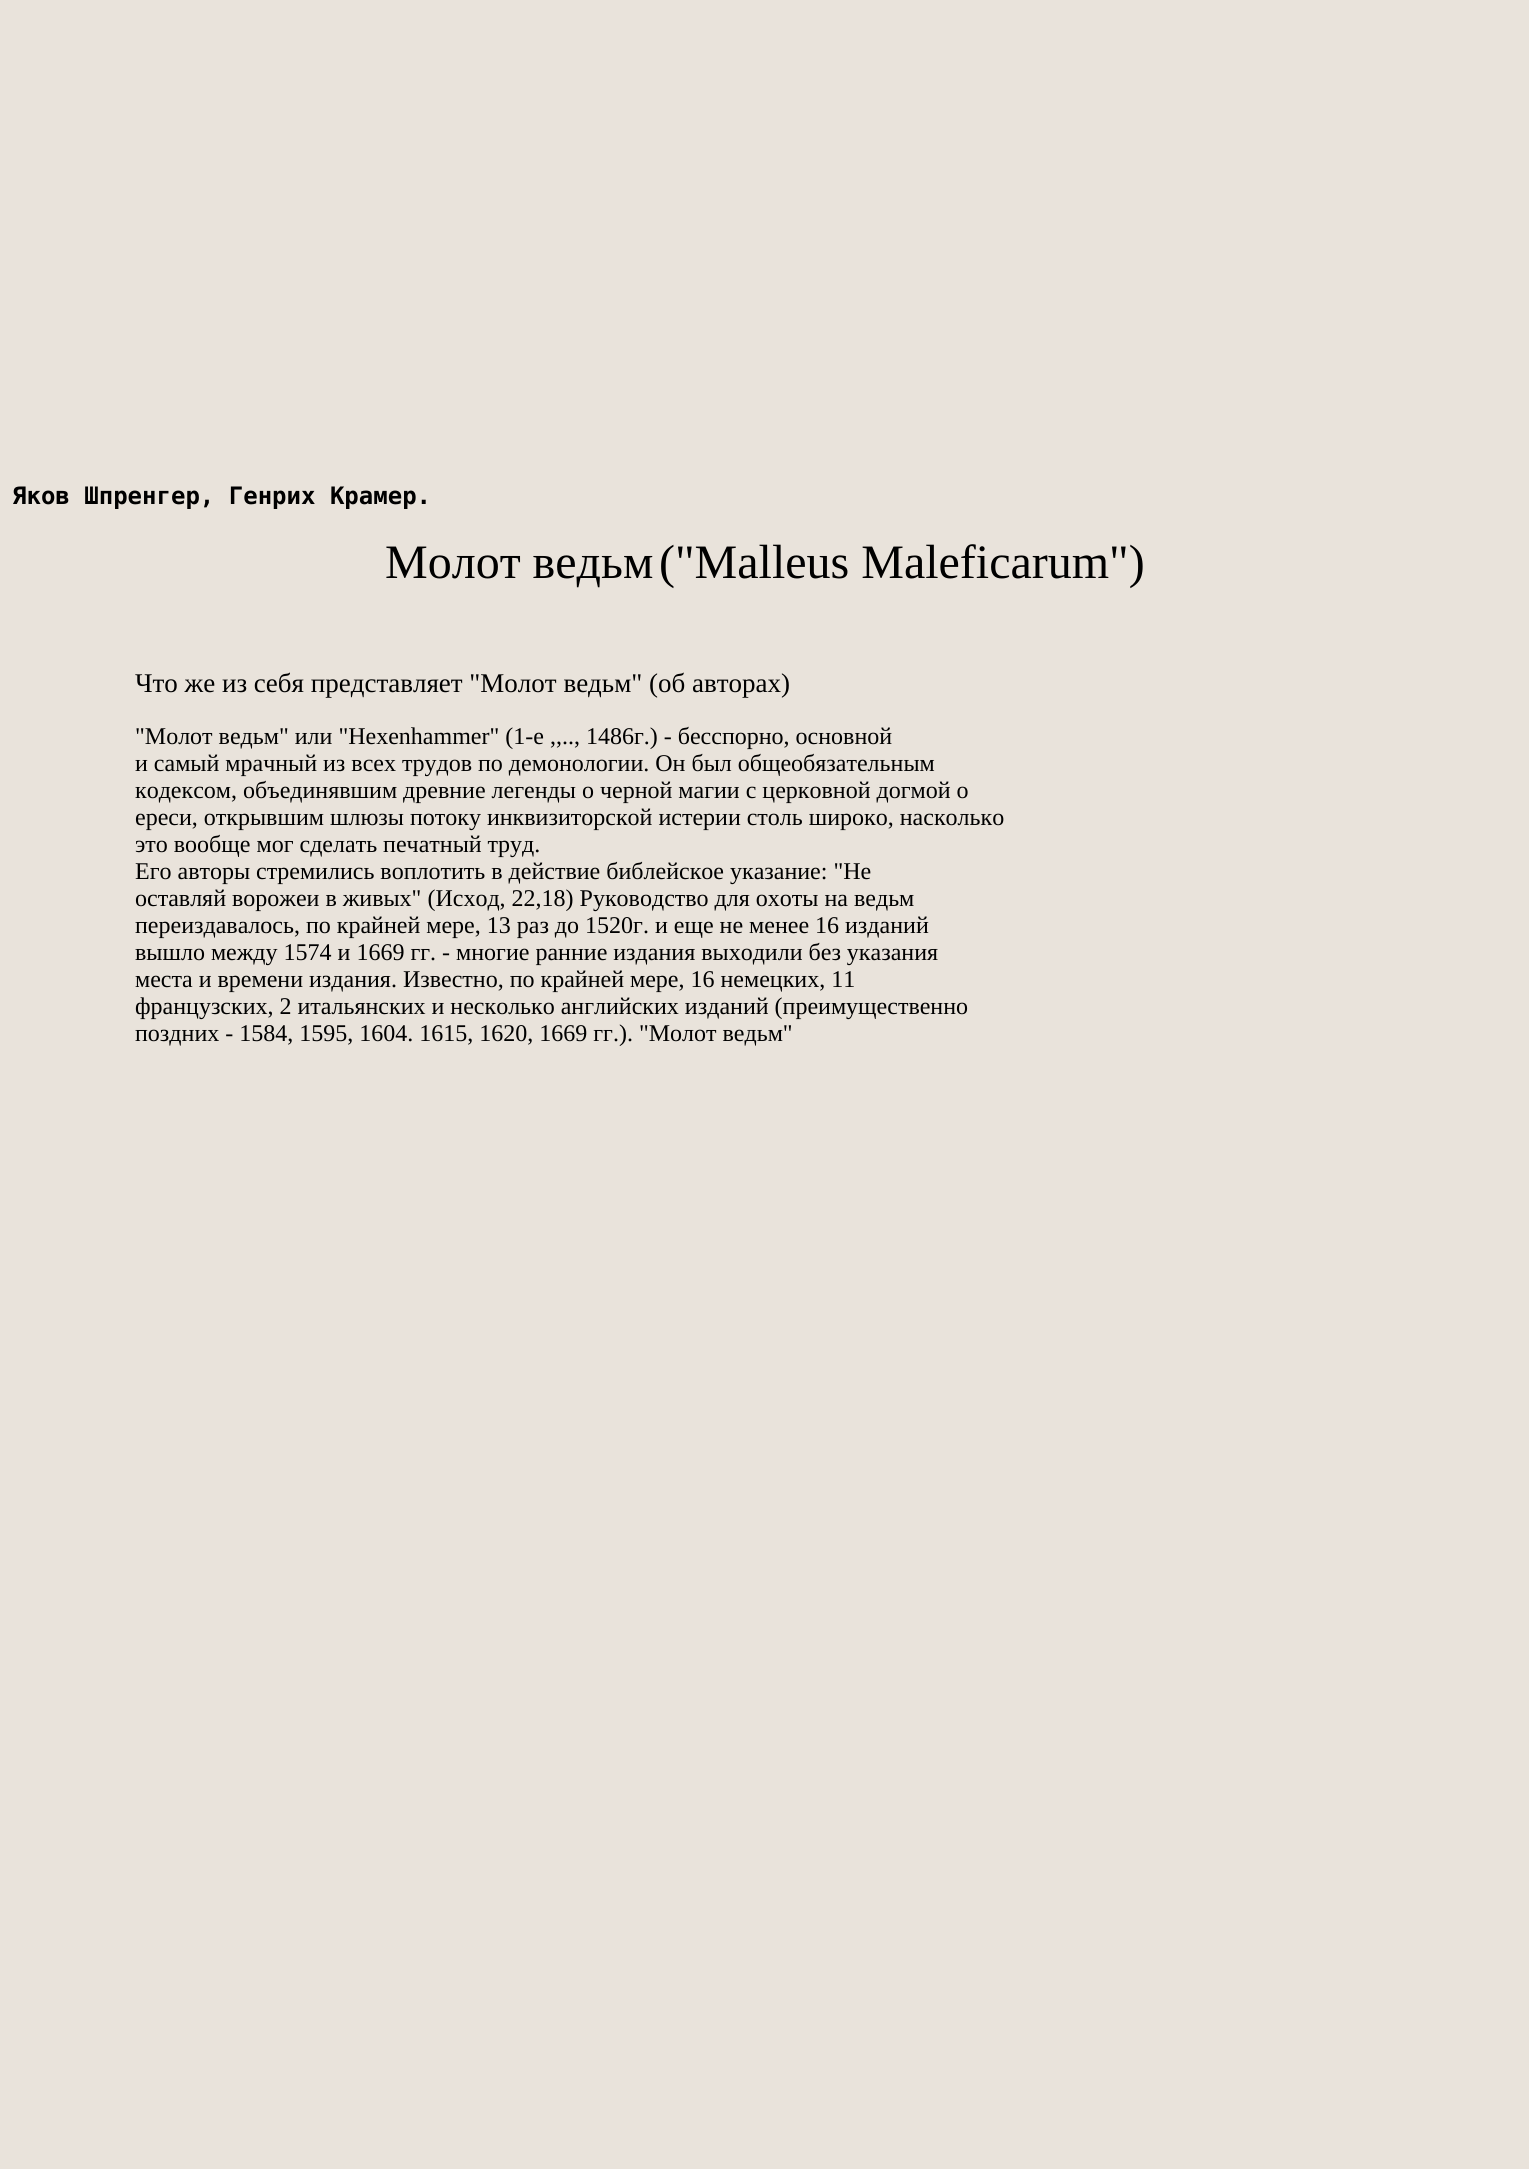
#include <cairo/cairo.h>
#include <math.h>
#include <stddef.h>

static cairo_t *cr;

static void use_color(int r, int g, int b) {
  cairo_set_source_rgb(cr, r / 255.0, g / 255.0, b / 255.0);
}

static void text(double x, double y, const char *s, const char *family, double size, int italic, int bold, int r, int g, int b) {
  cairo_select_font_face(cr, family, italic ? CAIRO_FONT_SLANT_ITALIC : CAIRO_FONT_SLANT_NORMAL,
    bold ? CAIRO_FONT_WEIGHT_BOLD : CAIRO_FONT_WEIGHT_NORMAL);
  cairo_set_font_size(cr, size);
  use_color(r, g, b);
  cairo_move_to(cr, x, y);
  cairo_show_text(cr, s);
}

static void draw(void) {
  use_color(233, 227, 219);
  cairo_paint(cr);
  text(12, 504, "Яков Шпренгер, Генрих Крамер.", "DejaVu Sans Mono", 24, 0, 1, 0, 0, 0);
  text(385, 578, "Молот ведьм", "Liberation Serif", 48, 0, 0, 0, 0, 0);
  text(659, 578, "(\"Malleus Maleficarum\")", "Liberation Serif", 48, 0, 0, 0, 0, 0);
  text(135, 692, "Что же из себя представляет \"Молот ведьм\" (об авторах)", "Liberation Serif", 27, 0, 0, 0, 0, 0);
  text(135, 744, "\"Молот ведьм\" или \"Hexenhammer\" (1-е ,,.., 1486г.) - бесспорно, основной", "Liberation Serif", 24, 0, 0, 0, 0, 0);
  text(135, 771, "и самый мрачный из всех трудов по демонологии. Он был общеобязательным", "Liberation Serif", 24, 0, 0, 0, 0, 0);
  text(135, 798, "кодексом, объединявшим древние легенды о черной магии с церковной догмой о", "Liberation Serif", 24, 0, 0, 0, 0, 0);
  text(135, 825, "ереси, открывшим шлюзы потоку инквизиторской истерии столь широко, насколько", "Liberation Serif", 24, 0, 0, 0, 0, 0);
  text(135, 852, "это вообще мог сделать печатный труд.", "Liberation Serif", 24, 0, 0, 0, 0, 0);
  text(135, 879, "Его авторы стремились воплотить в действие библейское указание: \"Не", "Liberation Serif", 24, 0, 0, 0, 0, 0);
  text(135, 906, "оставляй ворожеи в живых\" (Исход, 22,18) Руководство для охоты на ведьм", "Liberation Serif", 24, 0, 0, 0, 0, 0);
  text(135, 933, "переиздавалось, по крайней мере, 13 раз до 1520г. и еще не менее 16 изданий", "Liberation Serif", 24, 0, 0, 0, 0, 0);
  text(135, 960, "вышло между 1574 и 1669 гг. - многие ранние издания выходили без указания", "Liberation Serif", 24, 0, 0, 0, 0, 0);
  text(135, 987, "места и времени издания. Известно, по крайней мере, 16 немецких, 11", "Liberation Serif", 24, 0, 0, 0, 0, 0);
  text(135, 1014, "французских, 2 итальянских и несколько английских изданий (преимущественно", "Liberation Serif", 24, 0, 0, 0, 0, 0);
  text(135, 1041, "поздних - 1584, 1595, 1604. 1615, 1620, 1669 гг.). \"Молот ведьм\"", "Liberation Serif", 24, 0, 0, 0, 0, 0);
}

int main(void) {
  cairo_surface_t *surface = cairo_image_surface_create(CAIRO_FORMAT_RGB24, 1529, 2169);
  cr = cairo_create(surface);
  cairo_font_options_t *options = cairo_font_options_create();
  cairo_font_options_set_hint_metrics(options, CAIRO_HINT_METRICS_OFF);
  cairo_font_options_set_hint_style(options, CAIRO_HINT_STYLE_NONE);
  cairo_set_font_options(cr, options);
  cairo_set_miter_limit(cr, 4);
  draw();
  cairo_surface_write_to_png(surface, "out.png");
  cairo_font_options_destroy(options);
  cairo_destroy(cr);
  cairo_surface_destroy(surface);
  return 0;
}
